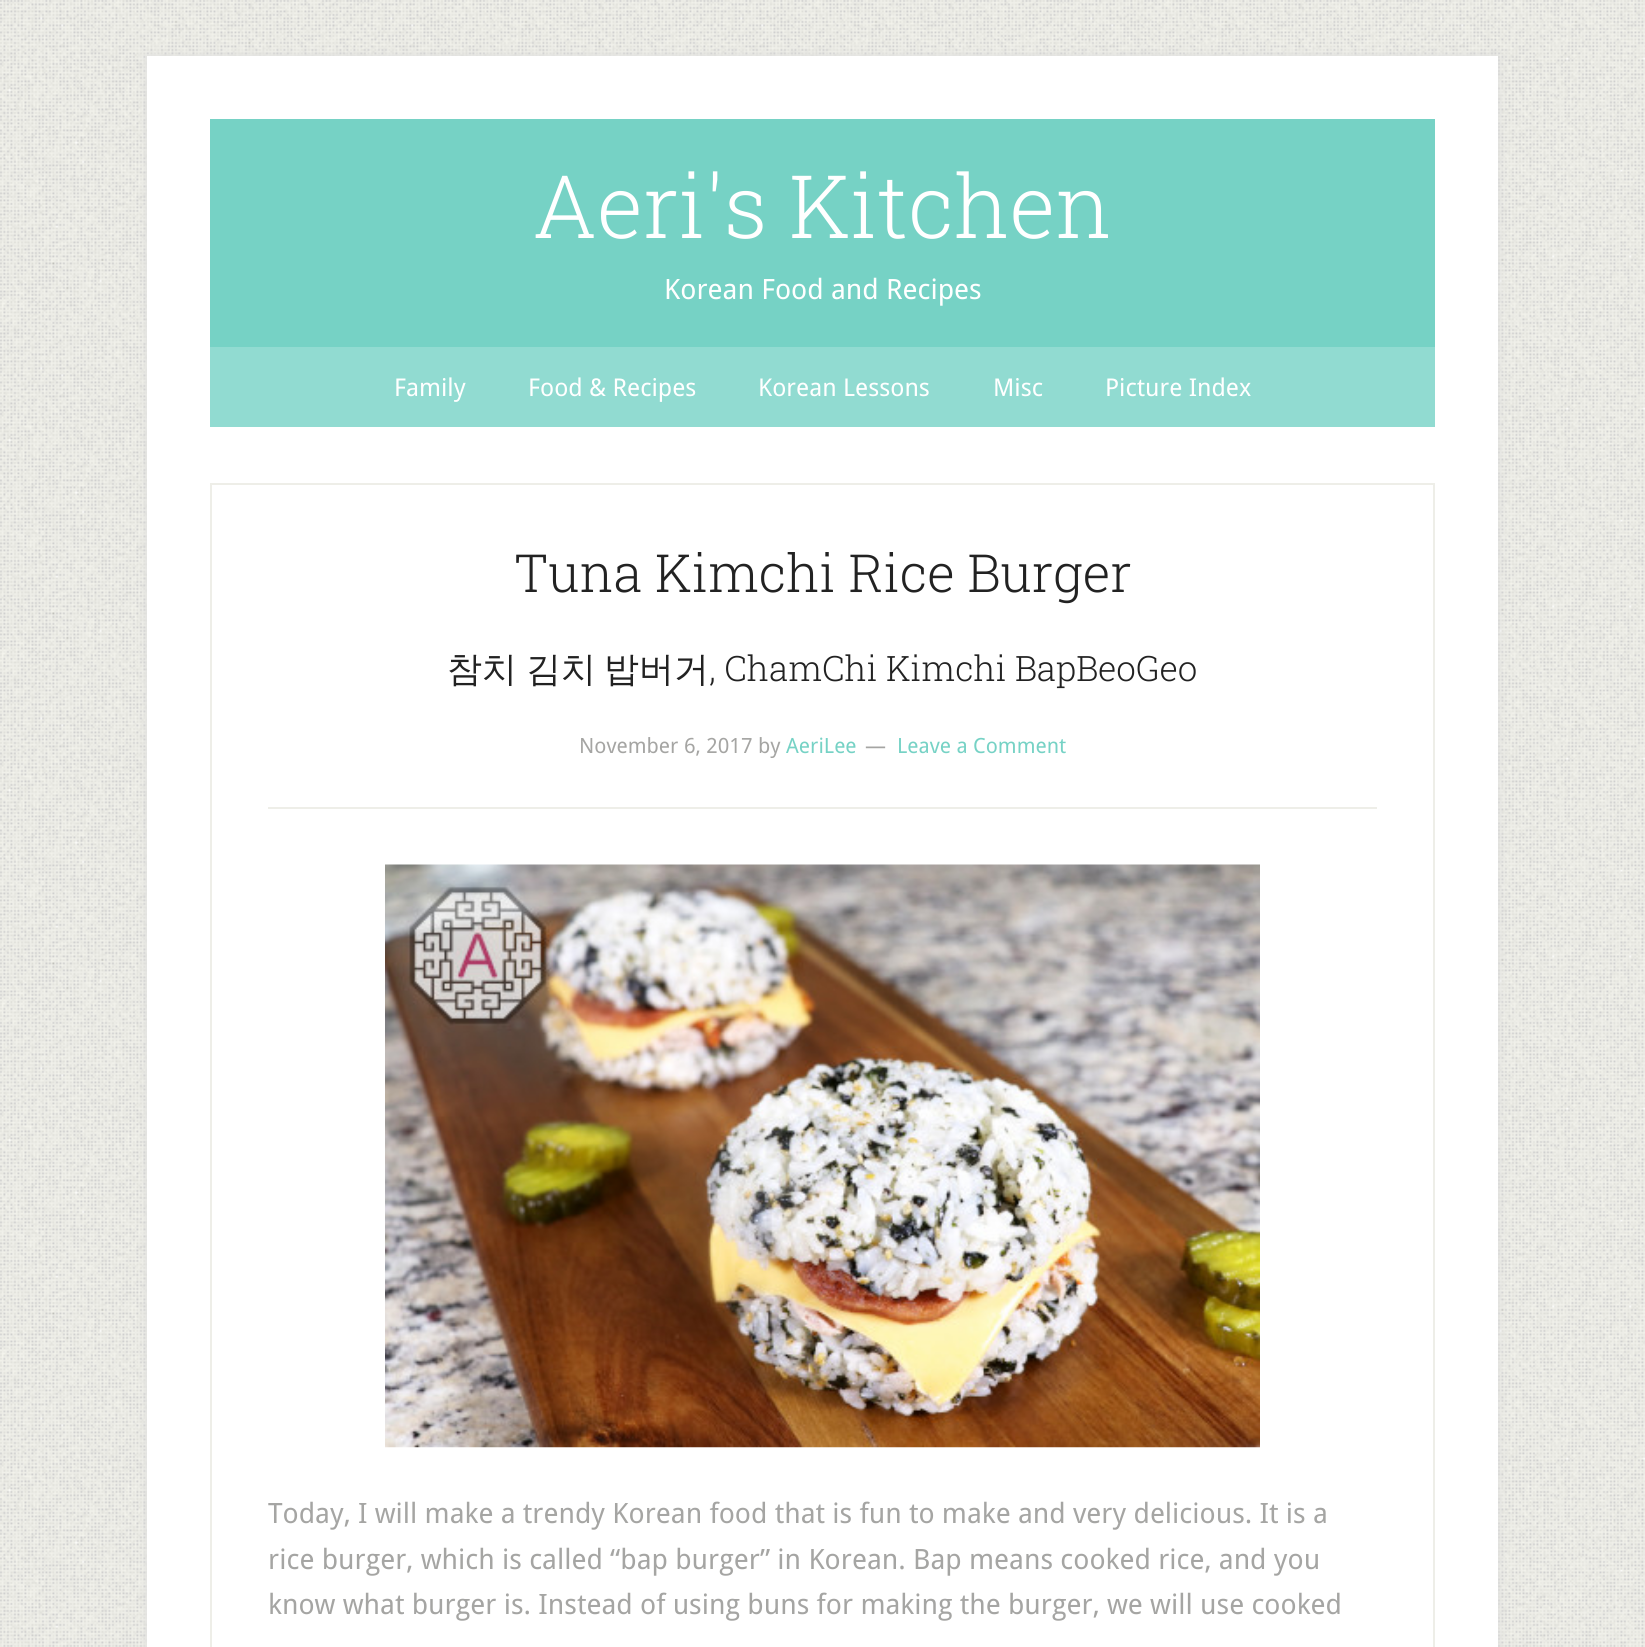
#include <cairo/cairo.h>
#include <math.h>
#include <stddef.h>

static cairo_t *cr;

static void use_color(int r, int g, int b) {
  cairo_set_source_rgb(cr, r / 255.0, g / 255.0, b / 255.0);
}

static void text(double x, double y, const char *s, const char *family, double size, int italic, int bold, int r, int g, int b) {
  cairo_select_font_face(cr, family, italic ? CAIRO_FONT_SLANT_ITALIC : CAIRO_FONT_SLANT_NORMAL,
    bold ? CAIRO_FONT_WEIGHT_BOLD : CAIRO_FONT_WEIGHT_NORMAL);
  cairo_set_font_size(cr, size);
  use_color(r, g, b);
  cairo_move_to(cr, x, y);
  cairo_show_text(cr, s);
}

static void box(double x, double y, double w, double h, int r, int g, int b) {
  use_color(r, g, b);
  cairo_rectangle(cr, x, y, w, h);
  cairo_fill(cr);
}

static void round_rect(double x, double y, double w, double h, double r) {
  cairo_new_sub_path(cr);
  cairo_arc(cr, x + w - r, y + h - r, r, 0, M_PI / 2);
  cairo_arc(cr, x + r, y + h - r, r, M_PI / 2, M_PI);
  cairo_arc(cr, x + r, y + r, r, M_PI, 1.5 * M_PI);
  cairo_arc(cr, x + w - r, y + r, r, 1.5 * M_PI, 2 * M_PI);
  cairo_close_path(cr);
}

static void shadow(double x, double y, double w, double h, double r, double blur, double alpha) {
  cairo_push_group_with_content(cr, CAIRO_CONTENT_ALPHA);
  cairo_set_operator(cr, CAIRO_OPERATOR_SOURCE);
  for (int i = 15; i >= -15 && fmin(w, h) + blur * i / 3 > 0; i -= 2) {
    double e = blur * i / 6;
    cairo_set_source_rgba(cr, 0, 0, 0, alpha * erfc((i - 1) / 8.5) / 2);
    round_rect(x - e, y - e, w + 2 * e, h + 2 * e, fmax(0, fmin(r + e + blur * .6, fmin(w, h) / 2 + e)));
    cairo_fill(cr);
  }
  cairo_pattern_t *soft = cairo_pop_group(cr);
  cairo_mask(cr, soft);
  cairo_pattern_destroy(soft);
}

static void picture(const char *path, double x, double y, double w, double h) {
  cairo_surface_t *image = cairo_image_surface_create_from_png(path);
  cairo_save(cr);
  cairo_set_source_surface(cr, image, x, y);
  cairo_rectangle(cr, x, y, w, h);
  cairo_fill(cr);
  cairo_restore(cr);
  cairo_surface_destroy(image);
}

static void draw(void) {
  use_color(255, 255, 255);
  cairo_paint(cr);
  picture("img_01.png", 0, 0, 1645, 1647);
  use_color(221, 221, 221);
  shadow(147, 56, 1351, 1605, 0, 4.5, 1);
  box(147, 56, 1351, 1591, 255, 255, 255);
  box(210, 119, 1225, 228, 118, 210, 197);
  box(210, 347, 1225, 80, 145, 219, 209);
  cairo_rectangle(cr, 211, 484, 1223, 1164);
  use_color(238, 238, 232);
  cairo_stroke(cr);
  box(268, 807, 1109, 2, 238, 238, 232);
  picture("img_02.png", 385, 864, 875, 584);
  text(533, 238, "Aeri's Kitchen", "Roboto Slab Light", 87.5, 0, 0, 255, 255, 255);
  text(664, 299, "Korean Food and Recipes", "Droid Sans", 28, 0, 0, 255, 255, 255);
  text(394, 396, "Family", "Droid Sans", 24.5, 0, 0, 255, 255, 255);
  text(528, 396, "Food & Recipes", "Droid Sans", 24.5, 0, 0, 255, 255, 255);
  text(758, 396, "Korean Lessons", "Droid Sans", 24.5, 0, 0, 255, 255, 255);
  text(993, 396, "Misc", "Droid Sans", 24.5, 0, 0, 255, 255, 255);
  text(1105, 396, "Picture Index", "Droid Sans", 24.5, 0, 0, 255, 255, 255);
  text(514, 592, "Tuna Kimchi Rice Burger", "Roboto Slab Light", 52.5, 0, 0, 34, 34, 34);
  text(447, 681, "참치", "WenQuanYi Zen Hei Medium", 35, 0, 0, 34, 34, 34);
  text(526, 681, "김치", "WenQuanYi Zen Hei Medium", 35, 0, 0, 34, 34, 34);
  text(604, 681, "밥버거", "WenQuanYi Zen Hei Medium", 35, 0, 0, 34, 34, 34);
  text(709, 681, ", ChamChi Kimchi BapBeoGeo", "Roboto Slab Light", 35, 0, 0, 34, 34, 34);
  text(579, 753, "November 6, 2017 by", "Droid Sans", 21, 0, 0, 165, 165, 163);
  text(786, 753, "AeriLee", "Droid Sans", 21, 0, 0, 118, 210, 197);
  text(865, 753, "—", "Droid Sans", 21, 0, 0, 165, 165, 163);
  text(897, 753, "Leave a Comment", "Droid Sans", 21, 0, 0, 118, 210, 197);
  text(268, 1523, "Today, I will make a trendy Korean food that is fun to make and very delicious. It is a", "Droid Sans", 28, 0, 0, 165, 165, 163);
  text(268, 1569, "rice burger, which is called “bap burger” in Korean. Bap means cooked rice, and you", "Droid Sans", 28, 0, 0, 165, 165, 163);
  text(268, 1614, "know what burger is. Instead of using buns for making the burger, we will use cooked", "Droid Sans", 28, 0, 0, 165, 165, 163);
}

int main(void) {
  cairo_surface_t *surface = cairo_image_surface_create(CAIRO_FORMAT_RGB24, 1645, 1647);
  cr = cairo_create(surface);
  cairo_font_options_t *options = cairo_font_options_create();
  cairo_font_options_set_hint_metrics(options, CAIRO_HINT_METRICS_OFF);
  cairo_font_options_set_hint_style(options, CAIRO_HINT_STYLE_NONE);
  cairo_set_font_options(cr, options);
  cairo_set_miter_limit(cr, 4);
  draw();
  cairo_surface_write_to_png(surface, "out.png");
  cairo_font_options_destroy(options);
  cairo_destroy(cr);
  cairo_surface_destroy(surface);
  return 0;
}
